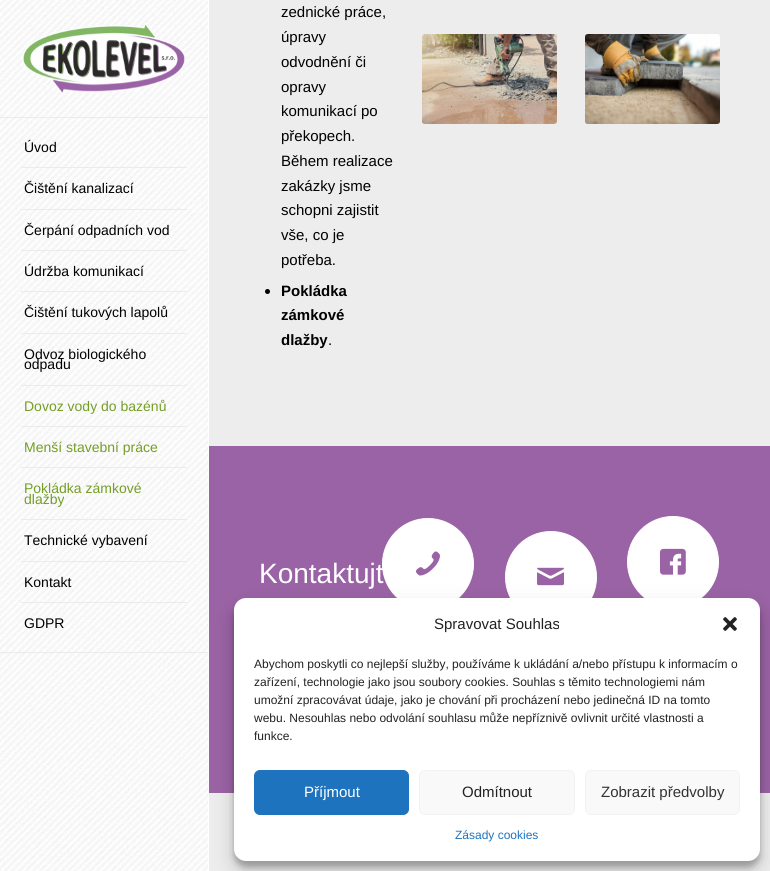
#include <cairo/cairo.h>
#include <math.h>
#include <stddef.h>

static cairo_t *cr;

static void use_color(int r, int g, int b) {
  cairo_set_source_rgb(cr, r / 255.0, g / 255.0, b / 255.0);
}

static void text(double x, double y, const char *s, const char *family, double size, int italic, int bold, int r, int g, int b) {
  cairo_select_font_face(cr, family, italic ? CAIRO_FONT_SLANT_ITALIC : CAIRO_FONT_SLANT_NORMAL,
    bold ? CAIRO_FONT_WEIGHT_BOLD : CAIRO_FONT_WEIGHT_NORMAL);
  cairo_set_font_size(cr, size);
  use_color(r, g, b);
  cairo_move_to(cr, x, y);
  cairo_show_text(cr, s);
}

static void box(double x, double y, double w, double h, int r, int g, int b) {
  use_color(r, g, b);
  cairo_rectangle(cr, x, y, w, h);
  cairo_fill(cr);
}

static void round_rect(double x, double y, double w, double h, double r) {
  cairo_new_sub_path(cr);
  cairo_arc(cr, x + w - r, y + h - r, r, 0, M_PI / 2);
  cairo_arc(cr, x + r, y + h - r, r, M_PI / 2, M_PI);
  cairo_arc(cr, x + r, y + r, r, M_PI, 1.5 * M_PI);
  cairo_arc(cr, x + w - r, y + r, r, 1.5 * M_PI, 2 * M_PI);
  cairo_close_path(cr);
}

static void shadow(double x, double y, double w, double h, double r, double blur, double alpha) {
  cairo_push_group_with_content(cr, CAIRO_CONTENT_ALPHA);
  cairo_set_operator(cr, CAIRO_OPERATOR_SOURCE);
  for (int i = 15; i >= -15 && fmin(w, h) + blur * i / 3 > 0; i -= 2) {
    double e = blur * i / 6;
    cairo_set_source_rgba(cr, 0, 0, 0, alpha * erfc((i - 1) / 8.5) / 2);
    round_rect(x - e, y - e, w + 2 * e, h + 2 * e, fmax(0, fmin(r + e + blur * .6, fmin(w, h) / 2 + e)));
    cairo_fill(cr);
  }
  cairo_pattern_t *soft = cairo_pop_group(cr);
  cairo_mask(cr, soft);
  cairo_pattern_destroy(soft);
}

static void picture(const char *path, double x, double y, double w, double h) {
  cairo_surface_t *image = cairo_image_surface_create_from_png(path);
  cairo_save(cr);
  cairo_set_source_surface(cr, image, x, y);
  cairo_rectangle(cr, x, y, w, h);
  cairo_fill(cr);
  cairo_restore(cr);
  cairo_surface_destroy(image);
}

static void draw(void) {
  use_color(255, 255, 255);
  cairo_paint(cr);
  picture("img_01.png", 0, 0, 208, 871);
  box(0, 652, 208, 1, 235, 235, 235);
  box(0, 117, 208, 1, 235, 235, 235);
  picture("img_02.png", 22, 23, 164, 70);
  box(21, 167, 166, 1, 235, 235, 235);
  box(21, 209, 166, 1, 235, 235, 235);
  box(21, 250, 166, 1, 235, 235, 235);
  box(21, 291, 166, 1, 235, 235, 235);
  box(21, 333, 166, 1, 235, 235, 235);
  box(21, 385, 166, 1, 235, 235, 235);
  box(21, 426, 166, 1, 235, 235, 235);
  box(21, 467, 166, 1, 235, 235, 235);
  box(21, 519, 166, 1, 235, 235, 235);
  box(21, 561, 166, 1, 235, 235, 235);
  box(21, 602, 166, 1, 235, 235, 235);
  box(209, 0, 561, 446, 237, 237, 237);
  use_color(0, 0, 0);
  cairo_arc(cr, 267.5, 291.5, 2.5, 0, 2 * M_PI);
  cairo_fill(cr);
  picture("img_03.png", 422, 34, 135, 90);
  picture("img_04.png", 585, 34, 135, 90);
  box(209, 446, 561, 347, 154, 99, 165);
  use_color(255, 255, 255);
  cairo_arc(cr, 428, 564, 45.5, 0, 2 * M_PI);
  cairo_fill_preserve(cr);
  cairo_set_line_width(cr, 1);
  cairo_stroke(cr);
  picture("img_05.png", 416, 551, 24, 25);
  cairo_arc(cr, 551, 577, 45.5, 0, 2 * M_PI);
  cairo_fill_preserve(cr);
  cairo_stroke(cr);
  picture("img_06.png", 537, 567, 27, 19);
  cairo_arc(cr, 673, 562, 45.5, 0, 2 * M_PI);
  cairo_fill_preserve(cr);
  cairo_stroke(cr);
  picture("img_07.png", 660, 548, 26, 27);
  box(209, 793, 561, 78, 237, 237, 237);
  use_color(0, 0, 0);
  shadow(234, 604, 526, 263, 12, 3, 0.23);
  shadow(234, 608, 526, 263, 12, 10, 0.19);
  use_color(255, 255, 255);
  round_rect(234, 598, 526, 263, 12);
  cairo_fill(cr);
  picture("img_08.png", 723, 617, 14, 14);
  use_color(30, 115, 190);
  round_rect(254.5, 770.5, 154, 44, 5.5);
  cairo_fill_preserve(cr);
  cairo_stroke(cr);
  use_color(249, 249, 249);
  round_rect(419.5, 770.5, 155, 44, 5.5);
  cairo_fill_preserve(cr);
  use_color(242, 242, 242);
  cairo_stroke(cr);
  use_color(249, 249, 249);
  round_rect(585.5, 770.5, 154, 44, 5.5);
  cairo_fill_preserve(cr);
  use_color(242, 242, 242);
  cairo_stroke(cr);
  text(24, 152, "Úvod", "Liberation Sans", 14, 0, 0, 0, 0, 0);
  text(24, 193, "Čištění kanalizací", "Liberation Sans", 14, 0, 0, 0, 0, 0);
  text(24, 235, "Čerpání odpadních vod", "Liberation Sans", 14, 0, 0, 0, 0, 0);
  text(24, 276, "Údržba komunikací", "Liberation Sans", 14, 0, 0, 0, 0, 0);
  text(24, 317, "Čištění tukových lapolů", "Liberation Sans", 14, 0, 0, 0, 0, 0);
  text(24, 359, "Odvoz biologického", "Liberation Sans", 14, 0, 0, 0, 0, 0);
  text(24, 369, "odpadu", "Liberation Sans", 14, 0, 0, 0, 0, 0);
  text(24, 411, "Dovoz vody do bazénů", "Liberation Sans", 14, 0, 0, 116, 158, 37);
  text(24, 452, "Menší stavební práce", "Liberation Sans", 14, 0, 0, 116, 158, 37);
  text(24, 493, "Pokládka zámkové", "Liberation Sans", 14, 0, 0, 116, 158, 37);
  text(24, 504, "dlažby", "Liberation Sans", 14, 0, 0, 116, 158, 37);
  text(24, 545, "Technické vybavení", "Liberation Sans", 14, 0, 0, 0, 0, 0);
  text(24, 587, "Kontakt", "Liberation Sans", 14, 0, 0, 0, 0, 0);
  text(24, 628, "GDPR", "Liberation Sans", 14, 0, 0, 0, 0, 0);
  text(281, 17, "zednické práce,", "Liberation Sans", 15, 0, 0, 0, 0, 0);
  text(281, 42, "úpravy", "Liberation Sans", 15, 0, 0, 0, 0, 0);
  text(281, 67, "odvodnění či", "Liberation Sans", 15, 0, 0, 0, 0, 0);
  text(281, 92, "opravy", "Liberation Sans", 15, 0, 0, 0, 0, 0);
  text(281, 116, "komunikací po", "Liberation Sans", 15, 0, 0, 0, 0, 0);
  text(281, 141, "překopech.", "Liberation Sans", 15, 0, 0, 0, 0, 0);
  text(281, 166, "Během realizace", "Liberation Sans", 15, 0, 0, 0, 0, 0);
  text(281, 191, "zakázky jsme", "Liberation Sans", 15, 0, 0, 0, 0, 0);
  text(281, 215, "schopni zajistit", "Liberation Sans", 15, 0, 0, 0, 0, 0);
  text(281, 240, "vše, co je", "Liberation Sans", 15, 0, 0, 0, 0, 0);
  text(281, 265, "potřeba.", "Liberation Sans", 15, 0, 0, 0, 0, 0);
  text(281, 296, "Pokládka", "Liberation Sans", 15, 0, 1, 0, 0, 0);
  text(281, 320, "zámkové", "Liberation Sans", 15, 0, 1, 0, 0, 0);
  text(281, 345, "dlažby", "Liberation Sans", 15, 0, 1, 0, 0, 0);
  text(328, 345, ".", "Liberation Sans", 15, 0, 0, 0, 0, 0);
  text(259, 583, "Kontaktujt", "Liberation Sans", 28, 0, 0, 255, 255, 255);
  text(434, 629, "Spravovat Souhlas", "Liberation Sans", 15, 0, 0, 34, 34, 34);
  text(254, 668, "Abychom poskytli co nejlepší služby, používáme k ukládání a/nebo přístupu k informacím o", "Liberation Sans", 12, 0, 0, 34, 34, 34);
  text(254, 686, "zařízení, technologie jako jsou soubory cookies. Souhlas s těmito technologiemi nám", "Liberation Sans", 12, 0, 0, 34, 34, 34);
  text(254, 704, "umožní zpracovávat údaje, jako je chování při procházení nebo jedinečná ID na tomto", "Liberation Sans", 12, 0, 0, 34, 34, 34);
  text(254, 722, "webu. Nesouhlas nebo odvolání souhlasu může nepříznivě ovlivnit určité vlastnosti a", "Liberation Sans", 12, 0, 0, 34, 34, 34);
  text(254, 740, "funkce.", "Liberation Sans", 12, 0, 0, 34, 34, 34);
  text(304, 797, "Příjmout", "Liberation Sans", 15, 0, 0, 255, 255, 255);
  text(462, 797, "Odmítnout", "Liberation Sans", 15, 0, 0, 34, 34, 34);
  text(601, 797, "Zobrazit předvolby", "Liberation Sans", 15, 0, 0, 51, 51, 51);
  text(455, 839, "Zásady cookies", "Liberation Sans", 12, 0, 0, 30, 115, 190);
}

int main(void) {
  cairo_surface_t *surface = cairo_image_surface_create(CAIRO_FORMAT_RGB24, 770, 871);
  cr = cairo_create(surface);
  cairo_font_options_t *options = cairo_font_options_create();
  cairo_font_options_set_hint_metrics(options, CAIRO_HINT_METRICS_OFF);
  cairo_font_options_set_hint_style(options, CAIRO_HINT_STYLE_NONE);
  cairo_set_font_options(cr, options);
  cairo_set_miter_limit(cr, 4);
  draw();
  cairo_surface_write_to_png(surface, "out.png");
  cairo_font_options_destroy(options);
  cairo_destroy(cr);
  cairo_surface_destroy(surface);
  return 0;
}
